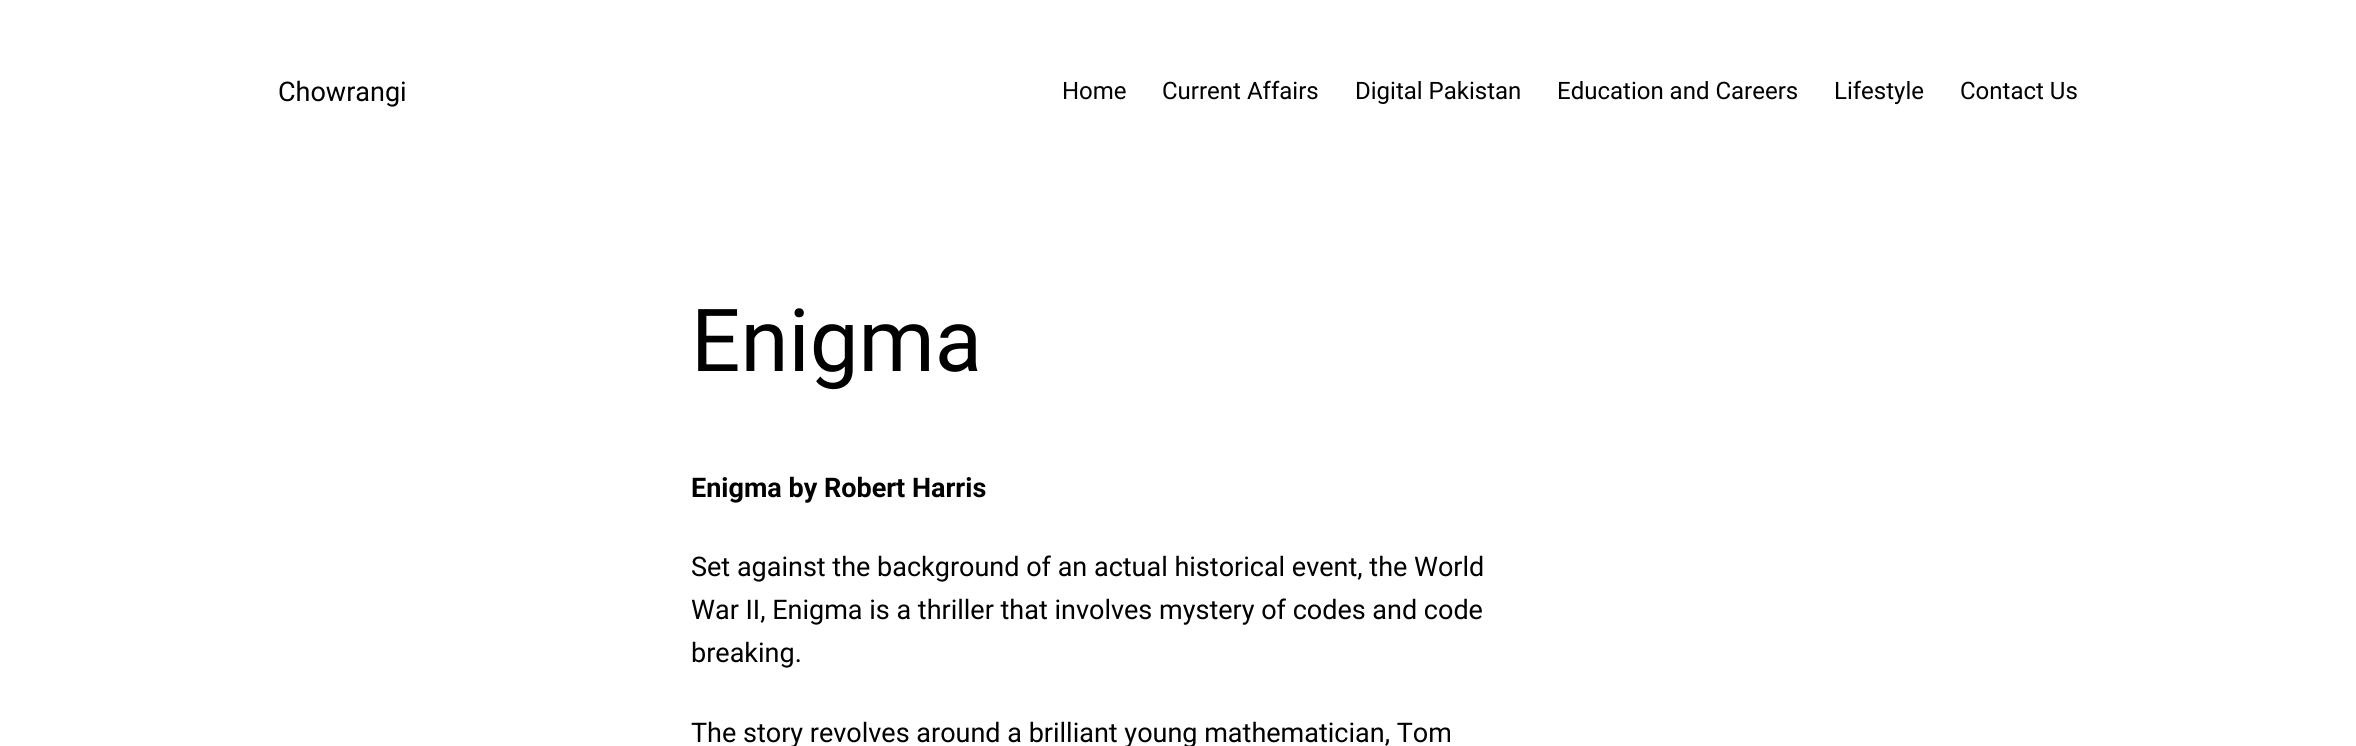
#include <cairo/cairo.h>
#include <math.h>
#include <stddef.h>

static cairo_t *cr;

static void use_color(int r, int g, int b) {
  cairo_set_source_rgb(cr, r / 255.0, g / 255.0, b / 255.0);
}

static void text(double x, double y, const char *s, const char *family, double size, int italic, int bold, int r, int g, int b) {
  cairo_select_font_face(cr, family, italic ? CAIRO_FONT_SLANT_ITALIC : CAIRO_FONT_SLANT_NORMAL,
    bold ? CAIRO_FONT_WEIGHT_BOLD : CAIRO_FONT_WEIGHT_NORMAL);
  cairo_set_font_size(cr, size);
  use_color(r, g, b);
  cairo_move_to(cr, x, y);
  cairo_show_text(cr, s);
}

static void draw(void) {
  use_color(255, 255, 255);
  cairo_paint(cr);
  text(278, 101, "Chowrangi", "Roboto", 27, 0, 0, 0, 0, 0);
  text(1062, 99, "Home", "Roboto", 24, 0, 0, 0, 0, 0);
  text(1162, 99, "Current Affairs", "Roboto", 24, 0, 0, 0, 0, 0);
  text(1355, 99, "Digital Pakistan", "Roboto", 24, 0, 0, 0, 0, 0);
  text(1557, 99, "Education and Careers", "Roboto", 24, 0, 0, 0, 0, 0);
  text(1834, 99, "Lifestyle", "Roboto", 24, 0, 0, 0, 0, 0);
  text(1960, 99, "Contact Us", "Roboto", 24, 0, 0, 0, 0, 0);
  text(691, 371, "Enigma", "Roboto", 87, 0, 0, 0, 0, 0);
  text(691, 497, "Enigma by Robert Harris", "Roboto", 27, 0, 1, 0, 0, 0);
  text(691, 576, "Set against the background of an actual historical event, the World", "Roboto", 27, 0, 0, 0, 0, 0);
  text(691, 619, "War II, Enigma is a thriller that involves mystery of codes and code", "Roboto", 27, 0, 0, 0, 0, 0);
  text(691, 662, "breaking.", "Roboto", 27, 0, 0, 0, 0, 0);
  text(691, 742, "The story revolves around a brilliant young mathematician, Tom", "Roboto", 27, 0, 0, 0, 0, 0);
}

int main(void) {
  cairo_surface_t *surface = cairo_image_surface_create(CAIRO_FORMAT_RGB24, 2356, 746);
  cr = cairo_create(surface);
  cairo_font_options_t *options = cairo_font_options_create();
  cairo_font_options_set_hint_metrics(options, CAIRO_HINT_METRICS_OFF);
  cairo_font_options_set_hint_style(options, CAIRO_HINT_STYLE_NONE);
  cairo_set_font_options(cr, options);
  cairo_set_miter_limit(cr, 4);
  draw();
  cairo_surface_write_to_png(surface, "out.png");
  cairo_font_options_destroy(options);
  cairo_destroy(cr);
  cairo_surface_destroy(surface);
  return 0;
}
